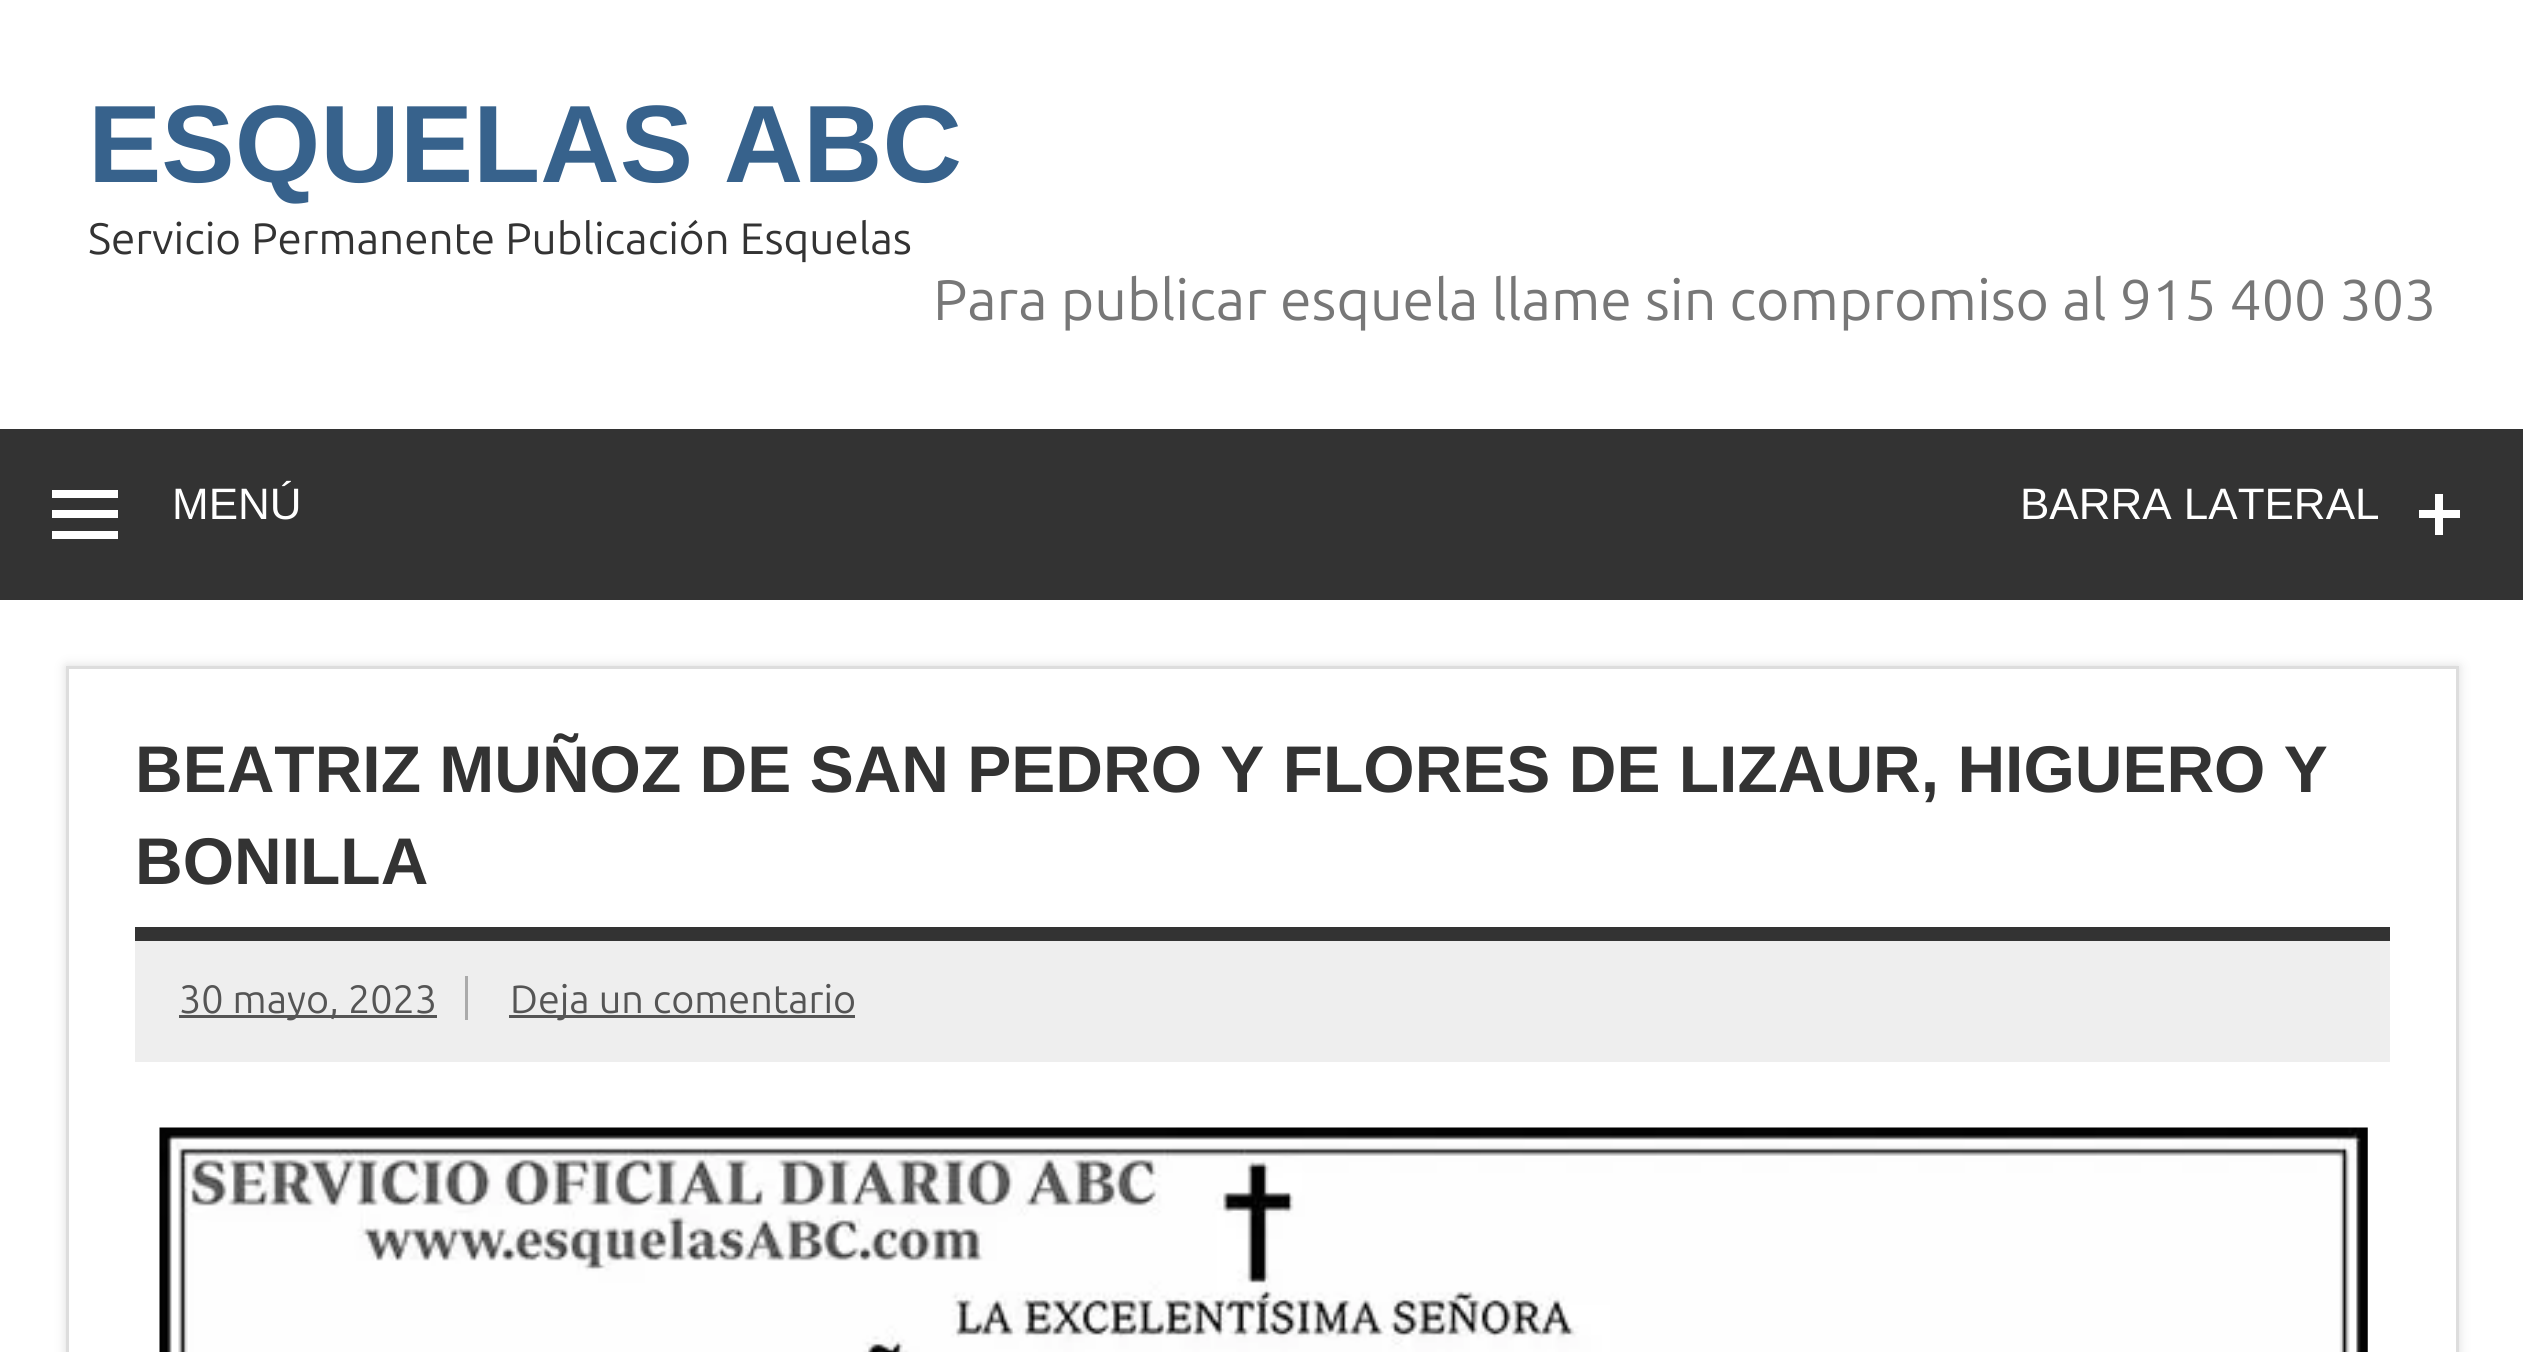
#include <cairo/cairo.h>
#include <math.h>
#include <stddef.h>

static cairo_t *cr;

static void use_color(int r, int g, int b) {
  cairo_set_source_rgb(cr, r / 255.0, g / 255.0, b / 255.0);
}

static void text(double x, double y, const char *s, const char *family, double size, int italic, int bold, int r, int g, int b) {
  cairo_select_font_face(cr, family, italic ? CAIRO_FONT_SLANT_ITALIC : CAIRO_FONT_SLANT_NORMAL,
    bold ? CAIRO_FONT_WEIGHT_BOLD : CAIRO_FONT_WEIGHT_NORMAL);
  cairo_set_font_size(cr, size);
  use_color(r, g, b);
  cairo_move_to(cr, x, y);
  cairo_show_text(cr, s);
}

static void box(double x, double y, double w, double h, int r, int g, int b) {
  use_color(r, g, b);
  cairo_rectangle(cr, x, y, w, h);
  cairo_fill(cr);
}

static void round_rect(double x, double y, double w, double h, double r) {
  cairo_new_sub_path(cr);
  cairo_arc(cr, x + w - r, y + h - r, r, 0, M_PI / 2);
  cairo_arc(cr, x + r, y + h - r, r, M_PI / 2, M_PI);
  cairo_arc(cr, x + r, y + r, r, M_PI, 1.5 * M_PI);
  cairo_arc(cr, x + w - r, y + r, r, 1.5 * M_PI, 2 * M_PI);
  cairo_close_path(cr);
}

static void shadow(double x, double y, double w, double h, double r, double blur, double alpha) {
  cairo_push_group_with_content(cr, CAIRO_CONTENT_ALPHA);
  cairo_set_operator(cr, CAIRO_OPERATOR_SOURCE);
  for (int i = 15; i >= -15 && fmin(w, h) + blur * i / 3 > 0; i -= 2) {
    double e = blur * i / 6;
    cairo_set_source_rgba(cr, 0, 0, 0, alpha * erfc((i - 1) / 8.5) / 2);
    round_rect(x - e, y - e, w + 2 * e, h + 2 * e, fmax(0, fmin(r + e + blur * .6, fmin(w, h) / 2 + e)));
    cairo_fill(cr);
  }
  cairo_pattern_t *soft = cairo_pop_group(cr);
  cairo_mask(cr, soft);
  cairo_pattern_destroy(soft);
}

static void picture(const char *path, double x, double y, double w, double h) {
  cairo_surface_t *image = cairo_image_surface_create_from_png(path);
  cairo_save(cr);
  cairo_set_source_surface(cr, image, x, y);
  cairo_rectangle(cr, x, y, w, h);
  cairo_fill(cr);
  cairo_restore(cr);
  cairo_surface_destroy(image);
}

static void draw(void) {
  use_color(255, 255, 255);
  cairo_paint(cr);
  box(0, 429, 2523, 171, 51, 51, 51);
  use_color(255, 255, 255);
  cairo_new_path(cr);
  cairo_move_to(cr, 52, 539);
  cairo_line_to(cr, 52, 531);
  cairo_line_to(cr, 118, 531);
  cairo_line_to(cr, 118, 539);
  cairo_close_path(cr);
  cairo_move_to(cr, 52, 490);
  cairo_line_to(cr, 118, 490);
  cairo_line_to(cr, 118, 498);
  cairo_line_to(cr, 52, 498);
  cairo_close_path(cr);
  cairo_move_to(cr, 52, 518);
  cairo_line_to(cr, 52, 510);
  cairo_line_to(cr, 118, 510);
  cairo_line_to(cr, 118, 518);
  cairo_close_path(cr);
  cairo_fill(cr);
  cairo_new_path(cr);
  cairo_move_to(cr, 2460, 510);
  cairo_line_to(cr, 2460, 518);
  cairo_line_to(cr, 2443, 518);
  cairo_line_to(cr, 2443, 535);
  cairo_line_to(cr, 2435, 535);
  cairo_line_to(cr, 2435, 518);
  cairo_line_to(cr, 2419, 518);
  cairo_line_to(cr, 2419, 510);
  cairo_line_to(cr, 2435, 510);
  cairo_line_to(cr, 2435, 494);
  cairo_line_to(cr, 2443, 494);
  cairo_line_to(cr, 2443, 510);
  cairo_close_path(cr);
  cairo_fill(cr);
  use_color(221, 221, 221);
  shadow(66, 666, 2393, 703, 0, 5.5, 1);
  use_color(255, 255, 255);
  cairo_rectangle(cr, 67.5, 667.5, 2390, 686);
  cairo_fill_preserve(cr);
  use_color(221, 221, 221);
  cairo_set_line_width(cr, 3);
  cairo_stroke(cr);
  box(135, 927, 2255, 14, 51, 51, 51);
  box(135, 941, 2255, 121, 238, 238, 238);
  box(465, 976, 3, 44, 170, 170, 170);
  box(179, 1015, 258, 3, 85, 85, 85);
  box(509, 1015, 346, 3, 85, 85, 85);
  picture("img_01.png", 159, 1127, 2209, 225);
  text(88, 182, "ESQUELAS ABC", "Liberation Sans", 110, 0, 1, 55, 98, 140);
  text(88, 254, "Servicio Permanente Publicación Esquelas", "Ubuntu", 44, 0, 0, 51, 51, 51);
  text(933, 320, "Para publicar esquela llame sin compromiso al 915 400 303", "Ubuntu", 57.2, 0, 0, 119, 119, 119);
  text(172, 519, "MENÚ", "Liberation Sans", 44, 0, 0, 255, 255, 255);
  text(2020, 519, "BARRA LATERAL", "Liberation Sans", 44, 0, 0, 255, 255, 255);
  text(135, 792, "BEATRIZ MUÑOZ DE SAN PEDRO Y FLORES DE LIZAUR, HIGUERO Y", "Liberation Sans", 66, 0, 1, 51, 51, 51);
  text(135, 884, "BONILLA", "Liberation Sans", 66, 0, 1, 51, 51, 51);
  text(179, 1013, "30 mayo, 2023", "Ubuntu", 39.5, 0, 0, 85, 85, 85);
  text(510, 1013, "Deja un comentario", "Ubuntu", 39.5, 0, 0, 85, 85, 85);
}

int main(void) {
  cairo_surface_t *surface = cairo_image_surface_create(CAIRO_FORMAT_RGB24, 2523, 1352);
  cr = cairo_create(surface);
  cairo_font_options_t *options = cairo_font_options_create();
  cairo_font_options_set_hint_metrics(options, CAIRO_HINT_METRICS_OFF);
  cairo_font_options_set_hint_style(options, CAIRO_HINT_STYLE_NONE);
  cairo_set_font_options(cr, options);
  cairo_set_miter_limit(cr, 4);
  draw();
  cairo_surface_write_to_png(surface, "out.png");
  cairo_font_options_destroy(options);
  cairo_destroy(cr);
  cairo_surface_destroy(surface);
  return 0;
}
